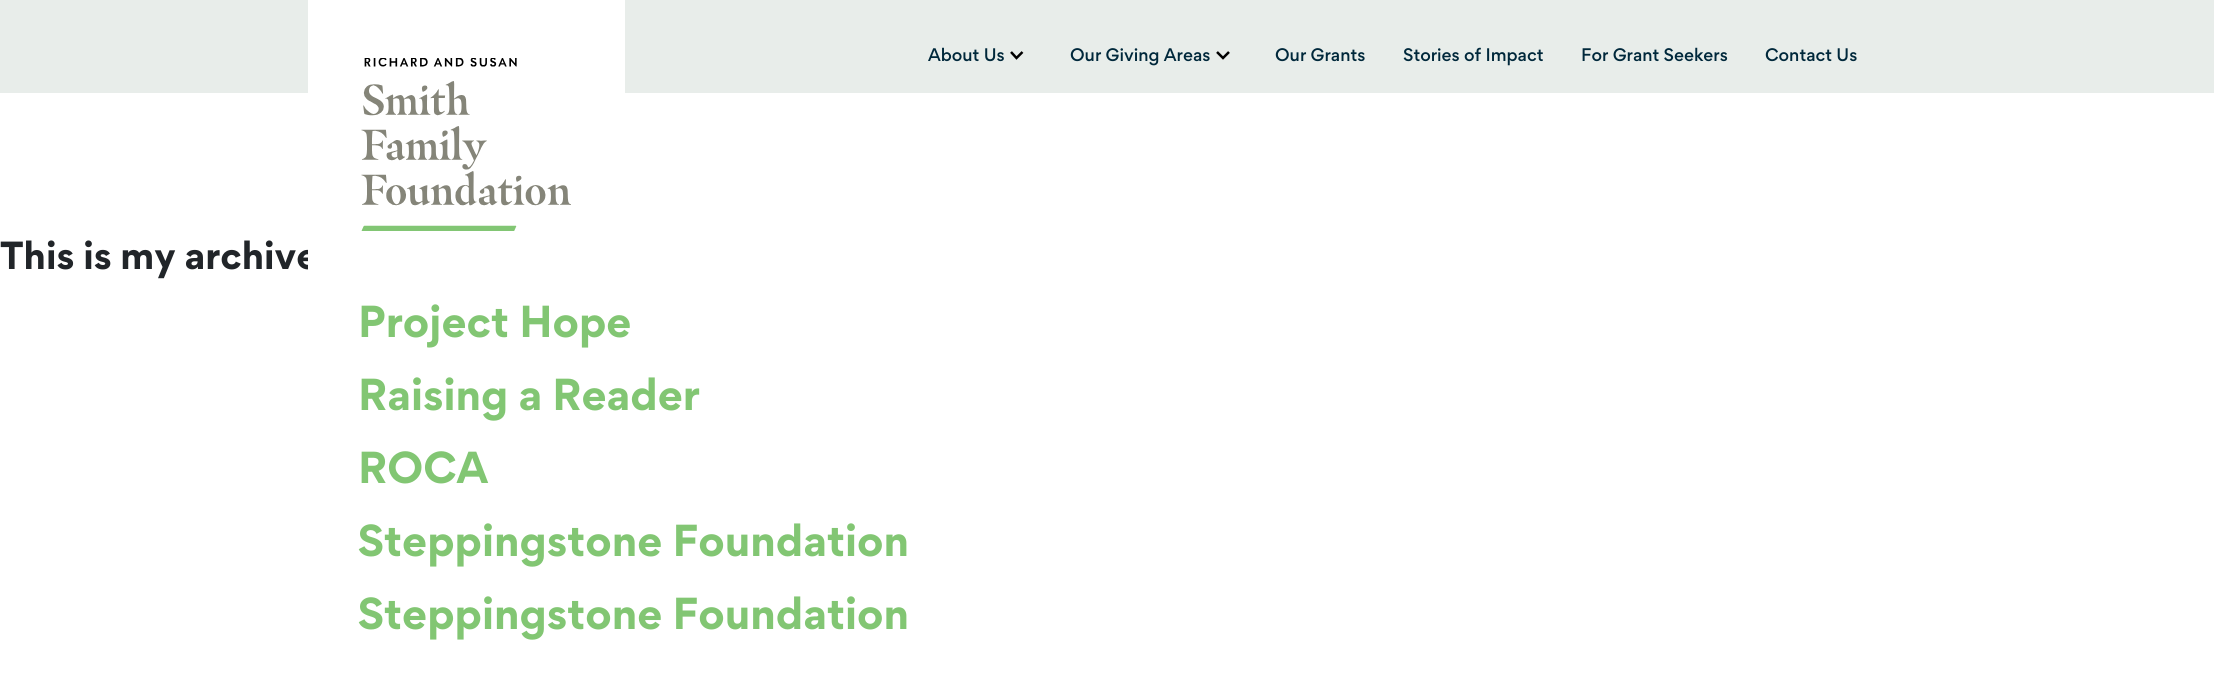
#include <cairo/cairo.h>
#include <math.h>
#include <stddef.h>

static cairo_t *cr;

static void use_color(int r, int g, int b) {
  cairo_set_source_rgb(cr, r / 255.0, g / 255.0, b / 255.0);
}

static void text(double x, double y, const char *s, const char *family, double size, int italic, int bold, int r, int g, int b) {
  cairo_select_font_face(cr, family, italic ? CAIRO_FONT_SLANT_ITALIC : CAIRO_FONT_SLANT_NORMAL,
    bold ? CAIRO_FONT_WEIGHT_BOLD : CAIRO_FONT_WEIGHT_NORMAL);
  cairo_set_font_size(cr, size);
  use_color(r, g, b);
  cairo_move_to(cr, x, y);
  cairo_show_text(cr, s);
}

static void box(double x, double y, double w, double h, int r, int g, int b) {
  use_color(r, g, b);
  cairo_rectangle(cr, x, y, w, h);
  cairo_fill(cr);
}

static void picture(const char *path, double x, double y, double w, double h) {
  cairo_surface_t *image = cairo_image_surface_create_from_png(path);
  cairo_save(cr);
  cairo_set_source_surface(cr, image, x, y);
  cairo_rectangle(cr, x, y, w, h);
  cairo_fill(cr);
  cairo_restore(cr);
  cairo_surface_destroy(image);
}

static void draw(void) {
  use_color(255, 255, 255);
  cairo_paint(cr);
  box(0, 0, 2214, 93, 232, 237, 234);
  cairo_new_path(cr);
  cairo_move_to(cr, 1011, 52);
  cairo_line_to(cr, 1016.5, 58);
  cairo_line_to(cr, 1022.5, 52);
  use_color(0, 0, 0);
  cairo_set_line_width(cr, 2.5);
  cairo_stroke(cr);
  cairo_new_path(cr);
  cairo_move_to(cr, 1217, 52);
  cairo_line_to(cr, 1223, 58);
  cairo_line_to(cr, 1229, 52);
  cairo_stroke(cr);
  text(928, 61, "About Us", "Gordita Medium", 16.25, 0, 0, 0, 40, 59);
  text(1070, 61, "Our Giving Areas", "Gordita Medium", 16.25, 0, 0, 0, 40, 59);
  text(1275, 61, "Our Grants", "Gordita Medium", 16.25, 0, 0, 0, 40, 59);
  text(1403, 61, "Stories of Impact", "Gordita Medium", 16.25, 0, 0, 0, 40, 59);
  text(1581, 61, "For Grant Seekers", "Gordita Medium", 16.25, 0, 0, 0, 40, 59);
  text(1765, 61, "Contact Us", "Gordita Medium", 16.25, 0, 0, 0, 40, 59);
  text(0, 269, "This is my archive", "Gordita", 35, 0, 1, 33, 37, 41);
  box(308, 0, 317, 270, 255, 255, 255);
  picture("img_01.png", 361, 58, 210, 173);
  text(358, 337, "Project Hope", "Gordita", 40, 0, 1, 130, 198, 115);
  text(358, 410, "Raising a Reader", "Gordita", 40, 0, 1, 130, 198, 115);
  text(358, 483, "ROCA", "Gordita", 40, 0, 1, 130, 198, 115);
  text(358, 556, "Steppingstone Foundation", "Gordita", 40, 0, 1, 130, 198, 115);
  text(358, 629, "Steppingstone Foundation", "Gordita", 40, 0, 1, 130, 198, 115);
}

int main(void) {
  cairo_surface_t *surface = cairo_image_surface_create(CAIRO_FORMAT_RGB24, 2214, 679);
  cr = cairo_create(surface);
  cairo_font_options_t *options = cairo_font_options_create();
  cairo_font_options_set_hint_metrics(options, CAIRO_HINT_METRICS_OFF);
  cairo_font_options_set_hint_style(options, CAIRO_HINT_STYLE_NONE);
  cairo_set_font_options(cr, options);
  cairo_set_miter_limit(cr, 4);
  draw();
  cairo_surface_write_to_png(surface, "out.png");
  cairo_font_options_destroy(options);
  cairo_destroy(cr);
  cairo_surface_destroy(surface);
  return 0;
}
